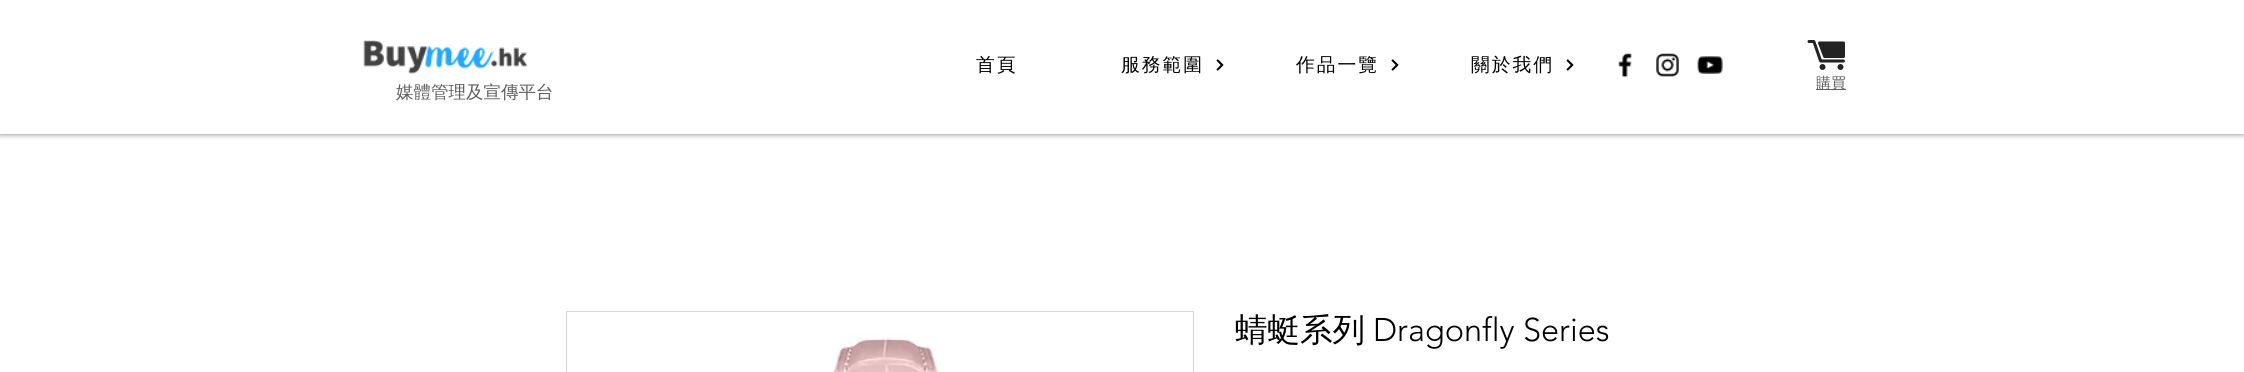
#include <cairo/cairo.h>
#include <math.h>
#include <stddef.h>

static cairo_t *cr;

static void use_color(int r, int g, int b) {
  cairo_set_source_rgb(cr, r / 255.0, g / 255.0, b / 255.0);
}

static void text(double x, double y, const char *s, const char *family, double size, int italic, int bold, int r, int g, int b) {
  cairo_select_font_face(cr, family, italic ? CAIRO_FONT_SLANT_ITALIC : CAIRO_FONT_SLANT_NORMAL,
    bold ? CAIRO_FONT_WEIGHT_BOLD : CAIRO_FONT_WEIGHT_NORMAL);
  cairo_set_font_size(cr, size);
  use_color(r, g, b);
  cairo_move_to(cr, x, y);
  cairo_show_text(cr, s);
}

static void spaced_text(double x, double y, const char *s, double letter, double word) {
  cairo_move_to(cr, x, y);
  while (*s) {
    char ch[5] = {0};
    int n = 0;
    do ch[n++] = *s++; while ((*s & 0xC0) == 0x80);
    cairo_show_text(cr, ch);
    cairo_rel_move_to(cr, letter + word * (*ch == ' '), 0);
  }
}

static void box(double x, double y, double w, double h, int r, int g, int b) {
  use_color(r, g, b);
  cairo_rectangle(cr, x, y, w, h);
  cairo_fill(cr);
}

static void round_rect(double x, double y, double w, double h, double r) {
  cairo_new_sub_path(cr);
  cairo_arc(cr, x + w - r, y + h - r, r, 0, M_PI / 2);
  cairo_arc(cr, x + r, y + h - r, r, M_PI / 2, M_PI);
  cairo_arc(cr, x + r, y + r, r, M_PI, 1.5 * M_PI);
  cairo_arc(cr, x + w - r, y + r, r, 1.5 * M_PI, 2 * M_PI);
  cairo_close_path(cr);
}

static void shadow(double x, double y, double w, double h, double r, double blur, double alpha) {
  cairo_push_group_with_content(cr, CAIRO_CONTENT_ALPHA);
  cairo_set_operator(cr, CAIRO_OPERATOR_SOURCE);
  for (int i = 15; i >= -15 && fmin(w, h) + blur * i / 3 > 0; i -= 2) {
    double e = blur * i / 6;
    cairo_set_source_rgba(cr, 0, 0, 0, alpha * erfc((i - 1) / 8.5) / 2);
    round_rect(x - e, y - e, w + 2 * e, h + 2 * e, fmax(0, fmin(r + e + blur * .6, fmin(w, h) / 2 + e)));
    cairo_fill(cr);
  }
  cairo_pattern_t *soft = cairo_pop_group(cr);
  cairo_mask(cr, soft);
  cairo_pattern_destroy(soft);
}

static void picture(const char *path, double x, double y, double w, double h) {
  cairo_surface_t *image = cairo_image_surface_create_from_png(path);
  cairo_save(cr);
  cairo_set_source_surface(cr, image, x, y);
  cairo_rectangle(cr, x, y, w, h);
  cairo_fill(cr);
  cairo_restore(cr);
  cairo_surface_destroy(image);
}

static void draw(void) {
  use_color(255, 255, 255);
  cairo_paint(cr);
  use_color(0, 0, 0);
  shadow(0, 0, 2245, 134, 0, 3, 0.5);
  box(0, 0, 2244, 134, 255, 255, 255);
  picture("img_01.png", 363, 40, 165, 34);
  picture("img_02.png", 1216, 59, 8, 12);
  picture("img_02.png", 1391, 59, 8, 12);
  picture("img_02.png", 1566, 59, 8, 12);
  picture("img_03.png", 1618, 53, 14, 25);
  picture("img_04.png", 1656, 53, 23, 24);
  picture("img_05.png", 1697, 56, 26, 18);
  picture("img_06.png", 1807, 40, 38, 30);
  box(1816, 89, 30, 1, 96, 96, 96);
  cairo_rectangle(cr, 566.5, 311.5, 627, 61);
  use_color(212, 212, 212);
  cairo_set_line_width(cr, 1);
  cairo_stroke(cr);
  picture("img_07.png", 833, 333, 105, 39);
  cairo_select_font_face(cr, "WenQuanYi Zen Hei Medium", CAIRO_FONT_SLANT_NORMAL, CAIRO_FONT_WEIGHT_NORMAL);
  cairo_set_font_size(cr, 18.75);
  use_color(0, 0, 0);
  spaced_text(976, 71, "首頁", 2, 0);
  spaced_text(1121, 71, "服務範圍", 2, 0);
  spaced_text(1296, 71, "作品一覽", 2, 0);
  spaced_text(1471, 71, "關於我們", 2, 0);
  text(396, 98, "媒體管理及宣傳平台", "WenQuanYi Zen Hei Medium", 17.5, 0, 0, 92, 92, 92);
  text(1816, 88, "購買", "WenQuanYi Zen Hei Medium", 15, 0, 0, 92, 92, 92);
  text(1235, 341, "蜻蜓系列", "WenQuanYi Zen Hei Medium", 32.5, 0, 0, 0, 0, 0);
  text(1373, 341, "Dragonfly Series", "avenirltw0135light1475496 Light", 32.5, 0, 0, 0, 0, 0);
}

int main(void) {
  cairo_surface_t *surface = cairo_image_surface_create(CAIRO_FORMAT_RGB24, 2244, 372);
  cr = cairo_create(surface);
  cairo_font_options_t *options = cairo_font_options_create();
  cairo_font_options_set_hint_metrics(options, CAIRO_HINT_METRICS_OFF);
  cairo_font_options_set_hint_style(options, CAIRO_HINT_STYLE_NONE);
  cairo_set_font_options(cr, options);
  cairo_set_miter_limit(cr, 4);
  draw();
  cairo_surface_write_to_png(surface, "out.png");
  cairo_font_options_destroy(options);
  cairo_destroy(cr);
  cairo_surface_destroy(surface);
  return 0;
}
